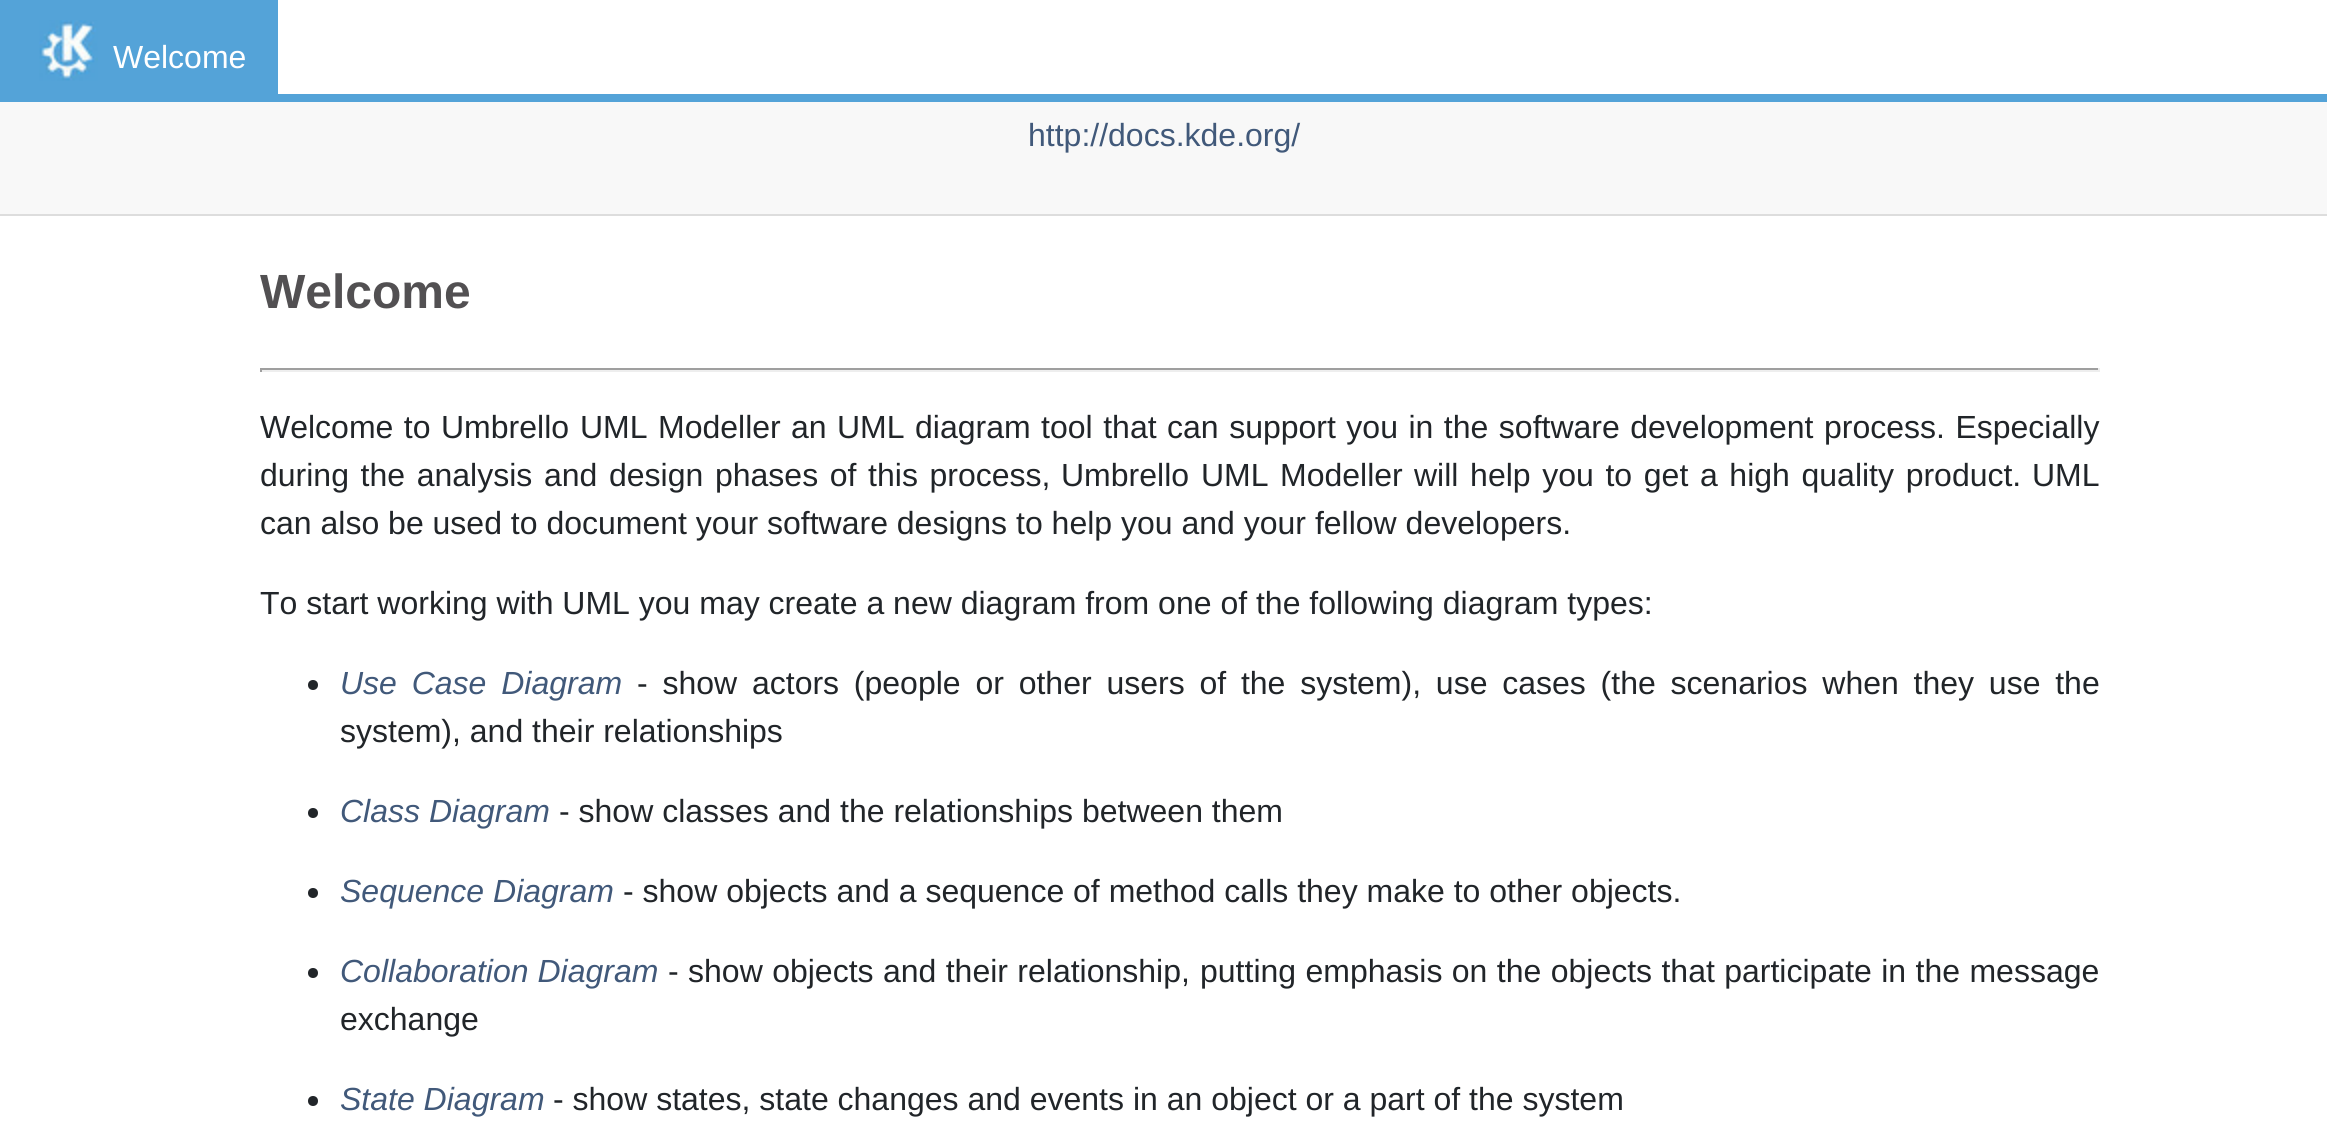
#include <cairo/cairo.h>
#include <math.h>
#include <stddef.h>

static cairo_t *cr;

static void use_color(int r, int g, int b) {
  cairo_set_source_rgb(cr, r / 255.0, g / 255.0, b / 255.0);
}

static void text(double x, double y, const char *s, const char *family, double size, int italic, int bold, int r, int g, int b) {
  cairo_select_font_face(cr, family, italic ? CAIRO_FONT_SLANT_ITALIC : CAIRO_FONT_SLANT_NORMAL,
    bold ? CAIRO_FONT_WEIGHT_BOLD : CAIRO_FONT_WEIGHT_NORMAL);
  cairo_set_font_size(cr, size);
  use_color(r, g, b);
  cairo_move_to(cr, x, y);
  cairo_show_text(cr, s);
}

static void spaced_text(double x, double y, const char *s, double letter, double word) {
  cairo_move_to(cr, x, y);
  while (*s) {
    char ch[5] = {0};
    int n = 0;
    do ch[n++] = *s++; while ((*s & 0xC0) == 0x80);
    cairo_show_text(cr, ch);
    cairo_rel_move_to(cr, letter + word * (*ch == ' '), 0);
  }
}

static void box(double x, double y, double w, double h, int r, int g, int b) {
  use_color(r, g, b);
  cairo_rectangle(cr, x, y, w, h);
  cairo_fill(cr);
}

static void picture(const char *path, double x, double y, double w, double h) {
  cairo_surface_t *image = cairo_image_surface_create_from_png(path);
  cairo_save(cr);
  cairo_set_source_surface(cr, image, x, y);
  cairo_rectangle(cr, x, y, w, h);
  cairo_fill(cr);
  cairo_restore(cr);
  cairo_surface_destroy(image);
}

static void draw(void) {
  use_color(255, 255, 255);
  cairo_paint(cr);
  box(0, 0, 2327, 102, 84, 163, 216);
  box(278, 0, 2049, 94, 255, 255, 255);
  picture("img_01.png", 39, 20, 59, 61);
  box(0, 102, 2327, 112, 248, 248, 248);
  box(0, 214, 2327, 2, 221, 221, 221);
  box(260, 368, 1840, 2, 159, 159, 159);
  box(2098, 368, 2, 4, 238, 238, 238);
  box(260, 370, 1840, 2, 238, 238, 238);
  box(260, 368, 2, 4, 159, 159, 159);
  use_color(33, 37, 41);
  cairo_arc(cr, 313, 685, 5, 0, 2 * M_PI);
  cairo_fill(cr);
  cairo_arc(cr, 313, 813, 5, 0, 2 * M_PI);
  cairo_fill(cr);
  cairo_arc(cr, 313, 893, 5, 0, 2 * M_PI);
  cairo_fill(cr);
  cairo_arc(cr, 313, 973, 5, 0, 2 * M_PI);
  cairo_fill(cr);
  cairo_arc(cr, 313, 1101, 5, 0, 2 * M_PI);
  cairo_fill(cr);
  text(113, 68, "Welcome", "Liberation Sans", 32, 0, 0, 255, 255, 255);
  text(1028, 146, "http://docs.kde.org/", "Liberation Sans", 32, 0, 0, 65, 89, 122);
  text(260, 308, "Welcome", "Liberation Sans", 48, 0, 1, 82, 80, 82);
  cairo_select_font_face(cr, "Liberation Sans", CAIRO_FONT_SLANT_NORMAL, CAIRO_FONT_WEIGHT_NORMAL);
  cairo_set_font_size(cr, 32);
  use_color(33, 37, 41);
  spaced_text(260, 438, "Welcome to", 0, 1.6);
  text(441, 438, "Umbrello", "Liberation Sans", 32, 0, 0, 33, 37, 41);
  text(580, 438, "UML", "Liberation Sans", 32, 0, 0, 33, 37, 41);
  text(658, 438, "Modeller", "Liberation Sans", 32, 0, 0, 33, 37, 41);
  text(791, 438, "an", "Liberation Sans", 32, 0, 0, 33, 37, 41);
  text(837, 438, "UML", "Liberation Sans", 32, 0, 0, 33, 37, 41);
  spaced_text(915, 438, "diagram tool that can support you in the software development process. Especially", 0, 1.6);
  spaced_text(260, 486, "during the analysis and design phases of this process,", 0, 2.75);
  text(1061, 486, "Umbrello", "Liberation Sans", 32, 0, 0, 33, 37, 41);
  text(1201, 486, "UML", "Liberation Sans", 32, 0, 0, 33, 37, 41);
  text(1280, 486, "Modeller", "Liberation Sans", 32, 0, 0, 33, 37, 41);
  spaced_text(1414, 486, "will help you to get a high quality product.", 0, 2.75);
  text(2032, 486, "UML", "Liberation Sans", 32, 0, 0, 33, 37, 41);
  text(260, 534, "can also be used to document your software designs to help you and your fellow developers.", "Liberation Sans", 32, 0, 0, 33, 37, 41);
  text(260, 614, "To start working with UML you may create a new diagram from one of the following diagram types:", "Liberation Sans", 32, 0, 0, 33, 37, 41);
  cairo_select_font_face(cr, "Liberation Sans", CAIRO_FONT_SLANT_ITALIC, CAIRO_FONT_WEIGHT_NORMAL);
  use_color(65, 89, 122);
  spaced_text(340, 694, "Use Case Diagram", 0, 5.9);
  cairo_select_font_face(cr, "Liberation Sans", CAIRO_FONT_SLANT_NORMAL, CAIRO_FONT_WEIGHT_NORMAL);
  use_color(33, 37, 41);
  spaced_text(637, 694, "- show actors (people or other users of the system), use cases (the scenarios when they use the", 0, 5.9);
  text(340, 742, "system), and their relationships", "Liberation Sans", 32, 0, 0, 33, 37, 41);
  text(340, 822, "Class Diagram", "Liberation Sans", 32, 1, 0, 65, 89, 122);
  text(559, 822, "- show classes and the relationships between them", "Liberation Sans", 32, 0, 0, 33, 37, 41);
  text(340, 902, "Sequence Diagram", "Liberation Sans", 32, 1, 0, 65, 89, 122);
  text(623, 902, "- show objects and a sequence of method calls they make to other objects.", "Liberation Sans", 32, 0, 0, 33, 37, 41);
  text(340, 982, "Collaboration Diagram", "Liberation Sans", 32, 1, 0, 65, 89, 122);
  cairo_select_font_face(cr, "Liberation Sans", CAIRO_FONT_SLANT_NORMAL, CAIRO_FONT_WEIGHT_NORMAL);
  use_color(33, 37, 41);
  spaced_text(668, 982, "- show objects and their relationship,", 0, 0.5);
  spaced_text(1200, 982, "putting emphasis on the objects that participate in the message", 0, 0.5);
  text(340, 1030, "exchange", "Liberation Sans", 32, 0, 0, 33, 37, 41);
  text(340, 1110, "State Diagram", "Liberation Sans", 32, 1, 0, 65, 89, 122);
  text(553, 1110, "- show states, state changes and events in an object or a part of the system", "Liberation Sans", 32, 0, 0, 33, 37, 41);
}

int main(void) {
  cairo_surface_t *surface = cairo_image_surface_create(CAIRO_FORMAT_RGB24, 2327, 1126);
  cr = cairo_create(surface);
  cairo_font_options_t *options = cairo_font_options_create();
  cairo_font_options_set_hint_metrics(options, CAIRO_HINT_METRICS_OFF);
  cairo_font_options_set_hint_style(options, CAIRO_HINT_STYLE_NONE);
  cairo_set_font_options(cr, options);
  cairo_set_miter_limit(cr, 4);
  draw();
  cairo_surface_write_to_png(surface, "out.png");
  cairo_font_options_destroy(options);
  cairo_destroy(cr);
  cairo_surface_destroy(surface);
  return 0;
}
